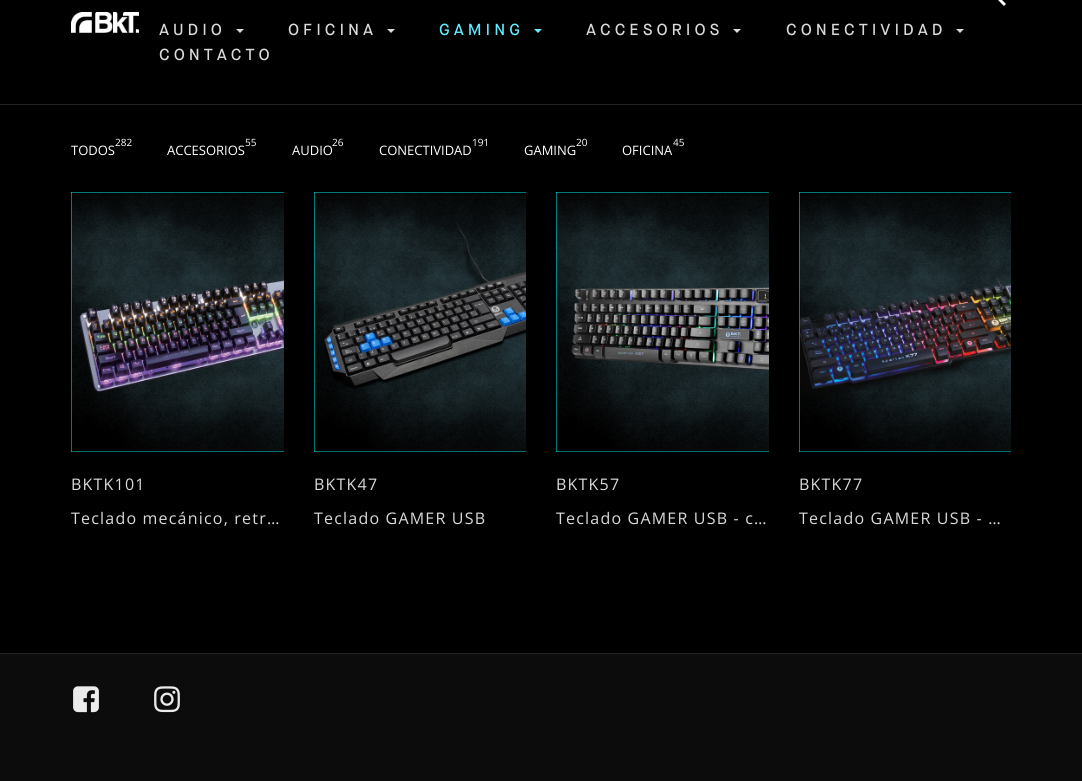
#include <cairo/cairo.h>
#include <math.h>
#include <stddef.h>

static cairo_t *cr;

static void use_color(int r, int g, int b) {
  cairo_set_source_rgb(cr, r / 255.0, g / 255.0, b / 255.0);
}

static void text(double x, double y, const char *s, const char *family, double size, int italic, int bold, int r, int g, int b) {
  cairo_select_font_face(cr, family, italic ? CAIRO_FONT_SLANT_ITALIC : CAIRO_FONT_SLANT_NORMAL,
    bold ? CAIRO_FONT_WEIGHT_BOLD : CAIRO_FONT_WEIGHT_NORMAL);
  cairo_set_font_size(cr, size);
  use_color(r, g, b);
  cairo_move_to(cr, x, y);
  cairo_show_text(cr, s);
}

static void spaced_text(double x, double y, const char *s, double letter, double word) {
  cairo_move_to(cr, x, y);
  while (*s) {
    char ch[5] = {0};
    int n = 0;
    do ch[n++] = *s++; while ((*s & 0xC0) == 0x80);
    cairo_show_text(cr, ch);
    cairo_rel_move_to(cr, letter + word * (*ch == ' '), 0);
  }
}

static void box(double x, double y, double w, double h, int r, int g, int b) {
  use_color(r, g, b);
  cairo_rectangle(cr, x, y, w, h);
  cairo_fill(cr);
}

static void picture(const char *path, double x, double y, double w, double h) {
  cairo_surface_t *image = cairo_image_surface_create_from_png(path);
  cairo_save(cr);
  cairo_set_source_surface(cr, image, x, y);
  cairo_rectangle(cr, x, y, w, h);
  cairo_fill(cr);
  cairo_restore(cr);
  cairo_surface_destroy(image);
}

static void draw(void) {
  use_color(0, 0, 0);
  cairo_paint(cr);
  box(0, 104, 1082, 1, 35, 35, 35);
  picture("img_01.png", 71, 12, 68, 21);
  picture("img_02.png", 998, 0, 8, 6);
  use_color(218, 218, 218);
  cairo_new_path(cr);
  cairo_move_to(cr, 236, 29);
  cairo_line_to(cr, 244, 29);
  cairo_line_to(cr, 240, 33);
  cairo_close_path(cr);
  cairo_fill(cr);
  cairo_new_path(cr);
  cairo_move_to(cr, 387, 29);
  cairo_line_to(cr, 395, 29);
  cairo_line_to(cr, 391, 33);
  cairo_close_path(cr);
  cairo_fill(cr);
  use_color(98, 238, 255);
  cairo_new_path(cr);
  cairo_move_to(cr, 534, 29);
  cairo_line_to(cr, 542, 29);
  cairo_line_to(cr, 538, 33);
  cairo_close_path(cr);
  cairo_fill(cr);
  use_color(218, 218, 218);
  cairo_new_path(cr);
  cairo_move_to(cr, 733, 29);
  cairo_line_to(cr, 741, 29);
  cairo_line_to(cr, 737, 33);
  cairo_close_path(cr);
  cairo_fill(cr);
  cairo_new_path(cr);
  cairo_move_to(cr, 956, 29);
  cairo_line_to(cr, 964, 29);
  cairo_line_to(cr, 960, 33);
  cairo_close_path(cr);
  cairo_fill(cr);
  picture("img_03.png", 71, 192, 213, 260);
  picture("img_04.png", 314, 192, 212, 260);
  picture("img_05.png", 556, 192, 213, 260);
  picture("img_06.png", 799, 192, 212, 260);
  box(0, 654, 1082, 127, 12, 12, 12);
  box(0, 653, 1082, 1, 35, 35, 35);
  picture("img_07.png", 73, 686, 26, 27);
  picture("img_08.png", 154, 686, 26, 27);
  cairo_select_font_face(cr, "Maison Neue Medium", CAIRO_FONT_SLANT_NORMAL, CAIRO_FONT_WEIGHT_NORMAL);
  cairo_set_font_size(cr, 16);
  use_color(218, 218, 218);
  spaced_text(159, 35, "AUDIO", 4, 0);
  spaced_text(288, 35, "OFICINA", 4, 0);
  use_color(98, 238, 255);
  spaced_text(439, 35, "GAMING", 4, 0);
  use_color(218, 218, 218);
  spaced_text(586, 35, "ACCESORIOS", 4, 0);
  spaced_text(786, 35, "CONECTIVIDAD", 4, 0);
  spaced_text(159, 60, "CONTACTO", 4, 0);
  text(115, 146, "282", "Open Sans", 10, 0, 0, 255, 255, 255);
  text(71, 155, "TODOS", "Open Sans", 13, 0, 0, 255, 255, 255);
  text(245, 146, "55", "Open Sans", 10, 0, 0, 255, 255, 255);
  text(167, 155, "ACCESORIOS", "Open Sans", 13, 0, 0, 255, 255, 255);
  text(332, 146, "26", "Open Sans", 10, 0, 0, 255, 255, 255);
  text(292, 155, "AUDIO", "Open Sans", 13, 0, 0, 255, 255, 255);
  text(472, 146, "191", "Open Sans", 10, 0, 0, 255, 255, 255);
  text(379, 155, "CONECTIVIDAD", "Open Sans", 13, 0, 0, 255, 255, 255);
  text(576, 146, "20", "Open Sans", 10, 0, 0, 255, 255, 255);
  text(524, 155, "GAMING", "Open Sans", 13, 0, 0, 255, 255, 255);
  text(673, 146, "45", "Open Sans", 10, 0, 0, 255, 255, 255);
  text(622, 155, "OFICINA", "Open Sans", 13, 0, 0, 255, 255, 255);
  cairo_set_font_size(cr, 16);
  use_color(218, 218, 218);
  spaced_text(71, 490, "BKTK101", 1.2, 0);
  spaced_text(71, 524, "Teclado mecánico, retr…", 1.2, 0);
  spaced_text(314, 490, "BKTK47", 1.2, 0);
  spaced_text(314, 524, "Teclado GAMER USB", 1.2, 0);
  spaced_text(556, 490, "BKTK57", 1.2, 0);
  spaced_text(556, 524, "Teclado GAMER USB - c…", 1.2, 0);
  spaced_text(799, 490, "BKTK77", 1.2, 0);
  spaced_text(799, 524, "Teclado GAMER USB - …", 1.2, 0);
}

int main(void) {
  cairo_surface_t *surface = cairo_image_surface_create(CAIRO_FORMAT_RGB24, 1082, 781);
  cr = cairo_create(surface);
  cairo_font_options_t *options = cairo_font_options_create();
  cairo_font_options_set_hint_metrics(options, CAIRO_HINT_METRICS_OFF);
  cairo_font_options_set_hint_style(options, CAIRO_HINT_STYLE_NONE);
  cairo_set_font_options(cr, options);
  cairo_set_miter_limit(cr, 4);
  draw();
  cairo_surface_write_to_png(surface, "out.png");
  cairo_font_options_destroy(options);
  cairo_destroy(cr);
  cairo_surface_destroy(surface);
  return 0;
}
